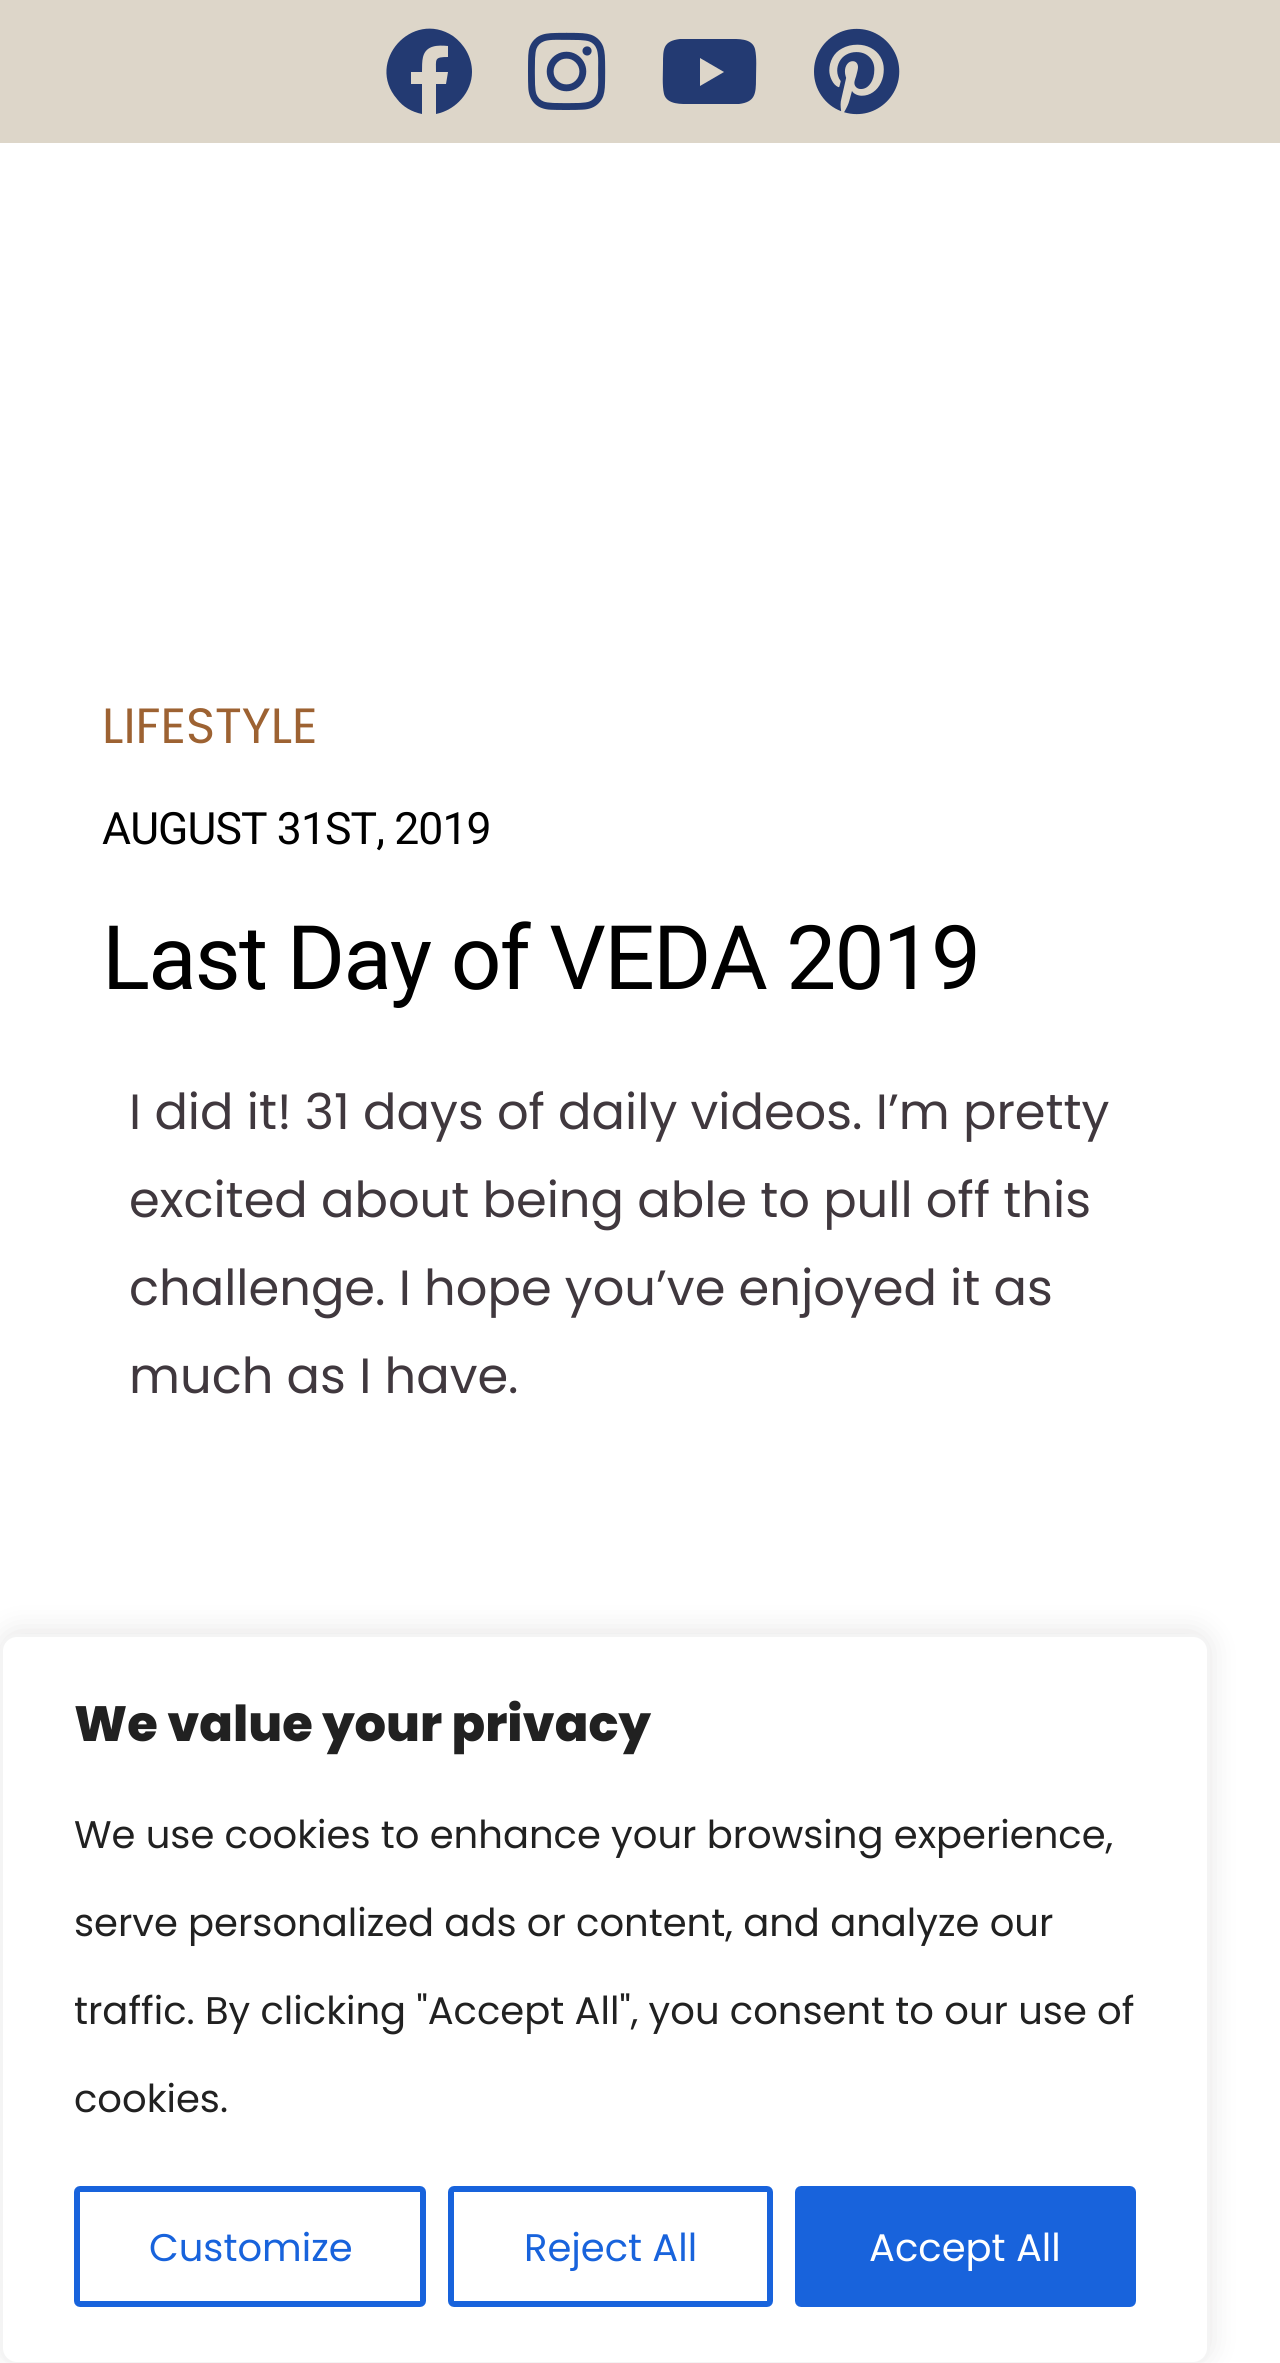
#include <cairo/cairo.h>
#include <math.h>
#include <stddef.h>

static cairo_t *cr;

static void use_color(int r, int g, int b) {
  cairo_set_source_rgb(cr, r / 255.0, g / 255.0, b / 255.0);
}

static void text(double x, double y, const char *s, const char *family, double size, int italic, int bold, int r, int g, int b) {
  cairo_select_font_face(cr, family, italic ? CAIRO_FONT_SLANT_ITALIC : CAIRO_FONT_SLANT_NORMAL,
    bold ? CAIRO_FONT_WEIGHT_BOLD : CAIRO_FONT_WEIGHT_NORMAL);
  cairo_set_font_size(cr, size);
  use_color(r, g, b);
  cairo_move_to(cr, x, y);
  cairo_show_text(cr, s);
}

static void spaced_text(double x, double y, const char *s, double letter, double word) {
  cairo_move_to(cr, x, y);
  while (*s) {
    char ch[5] = {0};
    int n = 0;
    do ch[n++] = *s++; while ((*s & 0xC0) == 0x80);
    cairo_show_text(cr, ch);
    cairo_rel_move_to(cr, letter + word * (*ch == ' '), 0);
  }
}

static void box(double x, double y, double w, double h, int r, int g, int b) {
  use_color(r, g, b);
  cairo_rectangle(cr, x, y, w, h);
  cairo_fill(cr);
}

static void round_rect(double x, double y, double w, double h, double r) {
  cairo_new_sub_path(cr);
  cairo_arc(cr, x + w - r, y + h - r, r, 0, M_PI / 2);
  cairo_arc(cr, x + r, y + h - r, r, M_PI / 2, M_PI);
  cairo_arc(cr, x + r, y + r, r, M_PI, 1.5 * M_PI);
  cairo_arc(cr, x + w - r, y + r, r, 1.5 * M_PI, 2 * M_PI);
  cairo_close_path(cr);
}

static void shadow(double x, double y, double w, double h, double r, double blur, double alpha) {
  cairo_push_group_with_content(cr, CAIRO_CONTENT_ALPHA);
  cairo_set_operator(cr, CAIRO_OPERATOR_SOURCE);
  for (int i = 15; i >= -15 && fmin(w, h) + blur * i / 3 > 0; i -= 2) {
    double e = blur * i / 6;
    cairo_set_source_rgba(cr, 0, 0, 0, alpha * erfc((i - 1) / 8.5) / 2);
    round_rect(x - e, y - e, w + 2 * e, h + 2 * e, fmax(0, fmin(r + e + blur * .6, fmin(w, h) / 2 + e)));
    cairo_fill(cr);
  }
  cairo_pattern_t *soft = cairo_pop_group(cr);
  cairo_mask(cr, soft);
  cairo_pattern_destroy(soft);
}

static void picture(const char *path, double x, double y, double w, double h) {
  cairo_surface_t *image = cairo_image_surface_create_from_png(path);
  cairo_save(cr);
  cairo_set_source_surface(cr, image, x, y);
  cairo_rectangle(cr, x, y, w, h);
  cairo_fill(cr);
  cairo_restore(cr);
  cairo_surface_destroy(image);
}

static void draw(void) {
  use_color(255, 255, 255);
  cairo_paint(cr);
  box(0, 0, 1280, 143, 221, 214, 201);
  use_color(35, 58, 114);
  cairo_new_path(cr);
  cairo_move_to(cr, 472, 72);
  cairo_curve_to(cr, 472, 92, 456, 110, 436, 114);
  cairo_line_to(cr, 436, 84);
  cairo_line_to(cr, 446, 84);
  cairo_line_to(cr, 448, 72);
  cairo_line_to(cr, 436, 72);
  cairo_curve_to(cr, 436, 59, 434, 57, 448, 57);
  cairo_line_to(cr, 448, 46);
  cairo_curve_to(cr, 438, 45, 426, 45, 423, 57);
  cairo_curve_to(cr, 422, 61, 422, 67, 422, 72);
  cairo_line_to(cr, 411, 72);
  cairo_line_to(cr, 411, 84);
  cairo_line_to(cr, 422, 84);
  cairo_line_to(cr, 422, 114);
  cairo_curve_to(cr, 412, 112, 403, 107, 397, 99);
  cairo_curve_to(cr, 365, 62, 412, 9, 453, 36);
  cairo_curve_to(cr, 464, 44, 472, 57, 472, 72);
  cairo_close_path(cr);
  cairo_fill(cr);
  picture("img_01.png", 528, 32, 78, 78);
  cairo_new_path(cr);
  cairo_move_to(cr, 755, 49);
  cairo_curve_to(cr, 757, 58, 756, 69, 756, 79);
  cairo_curve_to(cr, 756, 94, 755, 102, 739, 104);
  cairo_line_to(cr, 717, 104);
  cairo_line_to(cr, 690, 104);
  cairo_curve_to(cr, 682, 104, 667, 105, 664, 94);
  cairo_curve_to(cr, 662, 85, 663, 74, 663, 64);
  cairo_curve_to(cr, 663, 49, 663, 41, 680, 39);
  cairo_line_to(cr, 702, 39);
  cairo_line_to(cr, 729, 39);
  cairo_curve_to(cr, 738, 39, 752, 38, 755, 49);
  cairo_close_path(cr);
  cairo_move_to(cr, 700, 86);
  cairo_line_to(cr, 724, 72);
  cairo_line_to(cr, 700, 58);
  cairo_close_path(cr);
  cairo_fill(cr);
  picture("img_02.png", 814, 28, 86, 87);
  use_color(172, 171, 171);
  shadow(0, 1631, 1210, 731, 17, 14, 0.3);
  use_color(255, 255, 255);
  round_rect(1.5, 1635.5, 1207, 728, 15.5);
  cairo_fill_preserve(cr);
  use_color(244, 244, 244);
  cairo_set_line_width(cr, 3);
  cairo_stroke(cr);
  round_rect(77, 2189, 346, 115, 3);
  use_color(24, 99, 220);
  cairo_set_line_width(cr, 6);
  cairo_stroke(cr);
  round_rect(451, 2189, 319, 115, 3);
  cairo_stroke(cr);
  round_rect(798, 2189, 335, 115, 3);
  cairo_fill_preserve(cr);
  cairo_stroke(cr);
  text(102, 743, "LIFESTYLE", "Poppins", 49.5, 0, 0, 157, 98, 50);
  cairo_select_font_face(cr, "Roboto", CAIRO_FONT_SLANT_NORMAL, CAIRO_FONT_WEIGHT_NORMAL);
  cairo_set_font_size(cr, 44.5);
  use_color(0, 0, 0);
  spaced_text(102, 844, "AUGUST 31ST, 2019", -0.9, 0);
  cairo_set_font_size(cr, 89);
  spaced_text(102, 989, "Last Day of VEDA 2019", -1.75, 0);
  text(129, 1129, "I did it! 31 days of daily videos. I’m pretty", "Poppins", 49.5, 0, 0, 64, 56, 62);
  text(129, 1217, "excited about being able to pull off this", "Poppins", 49.5, 0, 0, 64, 56, 62);
  text(129, 1305, "challenge. I hope you’ve enjoyed it as", "Poppins", 49.5, 0, 0, 64, 56, 62);
  text(129, 1393, "much as I have.", "Poppins", 49.5, 0, 0, 64, 56, 62);
  text(74, 1741, "We value your privacy", "Poppins ExtraBold", 49.5, 0, 0, 33, 33, 33);
  text(74, 1848, "We use cookies to enhance your browsing experience,", "Poppins", 38.5, 0, 0, 33, 33, 33);
  text(74, 1936, "serve personalized ads or content, and analyze our", "Poppins", 38.5, 0, 0, 33, 33, 33);
  text(74, 2024, "traffic. By clicking \"Accept All\", you consent to our use of", "Poppins", 38.5, 0, 0, 33, 33, 33);
  text(74, 2112, "cookies.", "Poppins", 38.5, 0, 0, 33, 33, 33);
  text(149, 2261, "Customize", "Poppins", 38.5, 0, 0, 24, 99, 220);
  text(524, 2261, "Reject All", "Poppins", 38.5, 0, 0, 24, 99, 220);
  text(869, 2261, "Accept All", "Poppins", 38.5, 0, 0, 255, 255, 255);
}

int main(void) {
  cairo_surface_t *surface = cairo_image_surface_create(CAIRO_FORMAT_RGB24, 1280, 2363);
  cr = cairo_create(surface);
  cairo_font_options_t *options = cairo_font_options_create();
  cairo_font_options_set_hint_metrics(options, CAIRO_HINT_METRICS_OFF);
  cairo_font_options_set_hint_style(options, CAIRO_HINT_STYLE_NONE);
  cairo_set_font_options(cr, options);
  cairo_set_miter_limit(cr, 4);
  draw();
  cairo_surface_write_to_png(surface, "out.png");
  cairo_font_options_destroy(options);
  cairo_destroy(cr);
  cairo_surface_destroy(surface);
  return 0;
}
